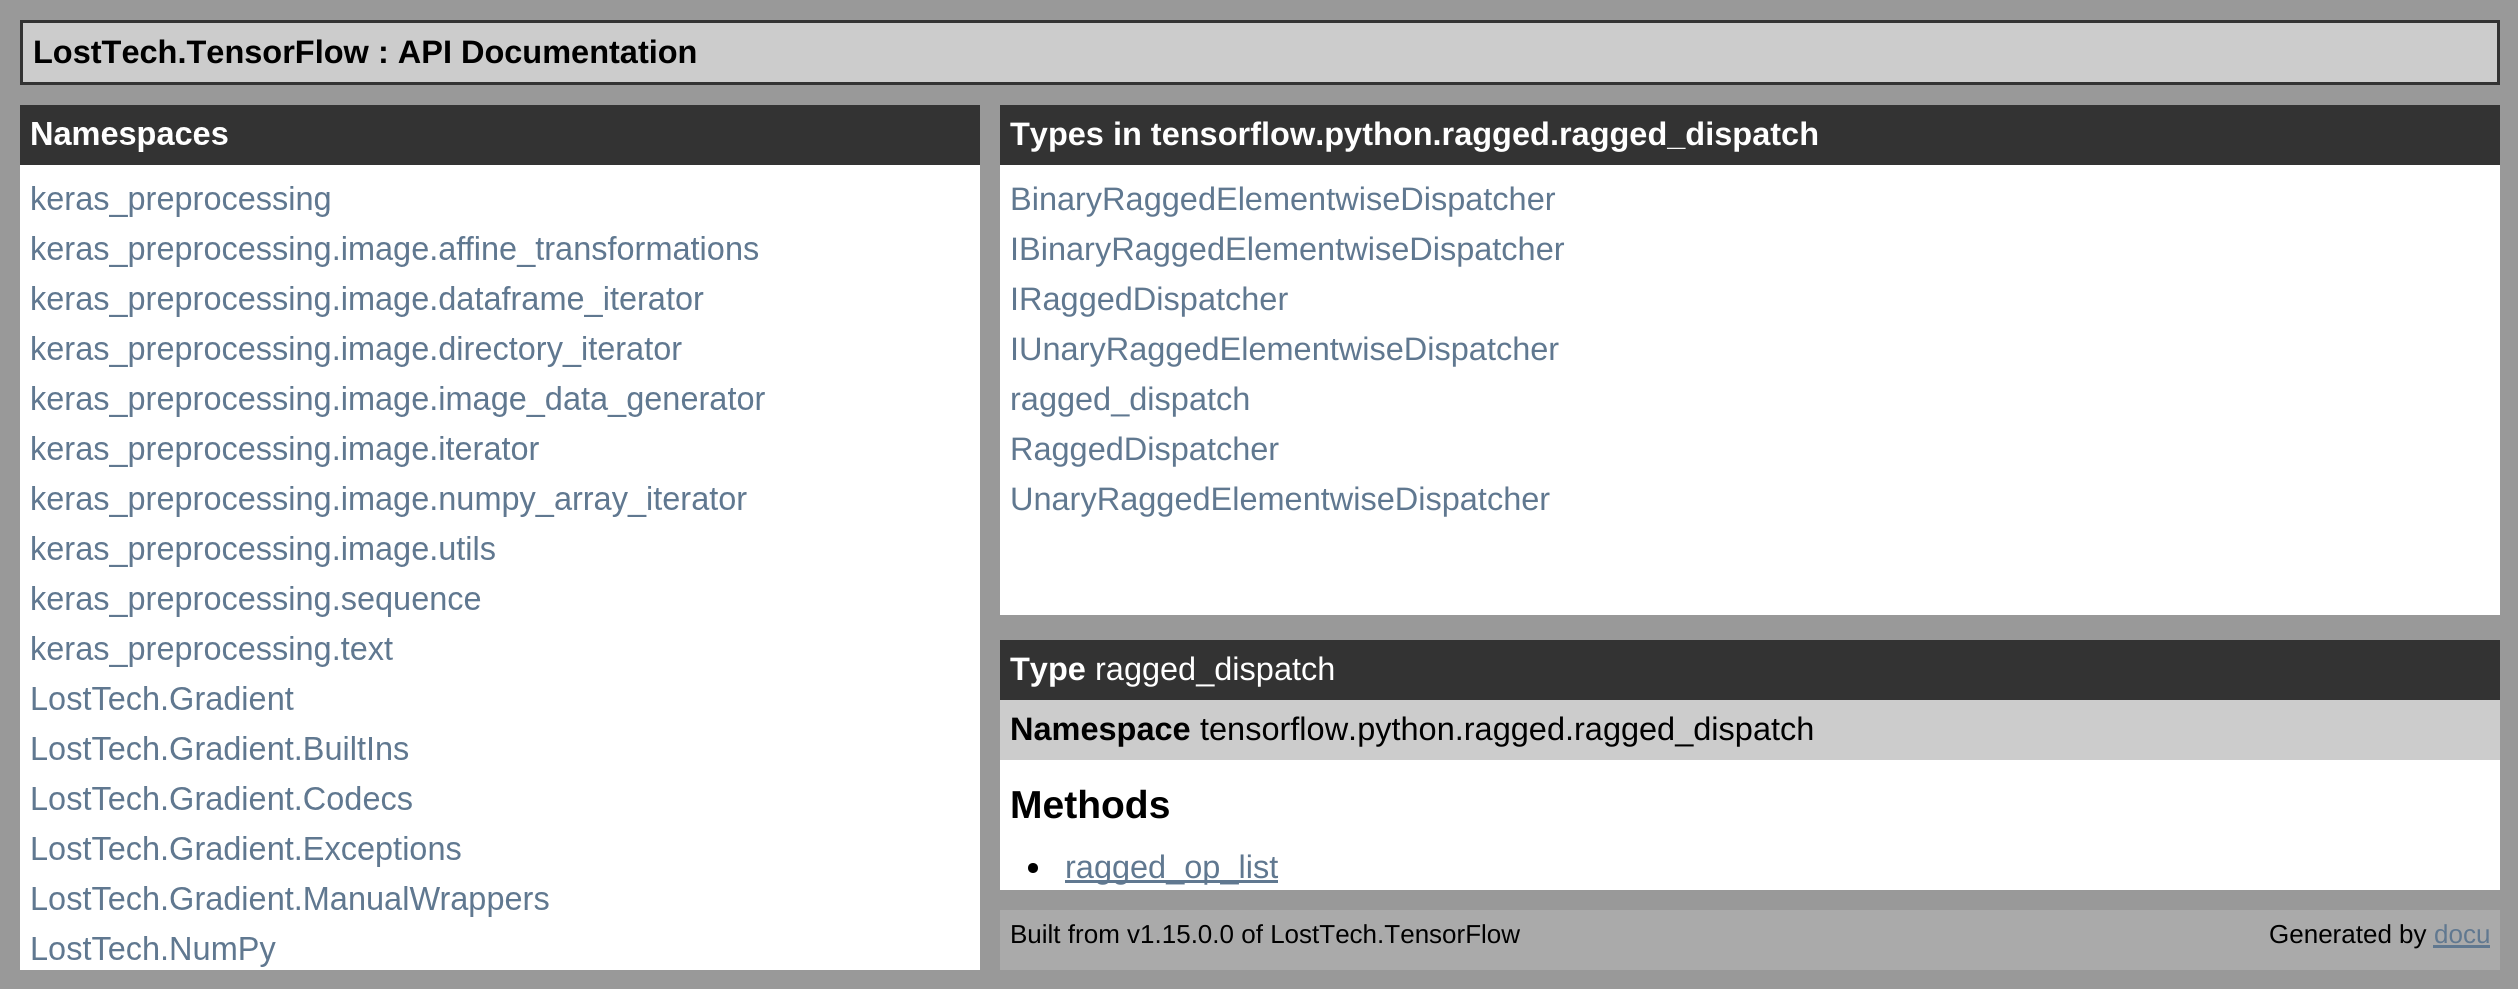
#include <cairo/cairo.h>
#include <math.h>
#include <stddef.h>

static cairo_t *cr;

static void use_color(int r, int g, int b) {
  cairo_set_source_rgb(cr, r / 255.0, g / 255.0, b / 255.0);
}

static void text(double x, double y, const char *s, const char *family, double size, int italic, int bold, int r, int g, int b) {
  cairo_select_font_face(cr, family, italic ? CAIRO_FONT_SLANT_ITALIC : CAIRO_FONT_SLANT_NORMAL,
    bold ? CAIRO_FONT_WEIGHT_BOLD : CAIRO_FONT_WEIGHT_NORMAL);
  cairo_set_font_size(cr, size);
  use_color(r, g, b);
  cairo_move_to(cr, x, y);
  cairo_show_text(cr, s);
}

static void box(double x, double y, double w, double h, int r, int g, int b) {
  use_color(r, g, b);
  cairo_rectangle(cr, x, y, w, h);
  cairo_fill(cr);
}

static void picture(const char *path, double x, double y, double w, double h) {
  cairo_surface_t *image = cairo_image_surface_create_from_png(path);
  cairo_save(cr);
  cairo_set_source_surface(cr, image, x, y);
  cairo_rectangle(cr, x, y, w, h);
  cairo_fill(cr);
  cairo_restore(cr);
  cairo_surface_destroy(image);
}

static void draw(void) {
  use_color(153, 153, 153);
  cairo_paint(cr);
  use_color(204, 204, 204);
  cairo_rectangle(cr, 21.5, 21.5, 2477, 62);
  cairo_fill_preserve(cr);
  use_color(51, 51, 51);
  cairo_set_line_width(cr, 3);
  cairo_stroke(cr);
  picture("img_01.png", 20, 105, 960, 865);
  box(1000, 165, 1500, 450, 255, 255, 255);
  box(1000, 105, 1500, 60, 51, 51, 51);
  box(1000, 760, 1500, 130, 255, 255, 255);
  box(1000, 640, 1500, 60, 51, 51, 51);
  box(1000, 700, 1500, 60, 204, 204, 204);
  use_color(0, 0, 0);
  cairo_arc(cr, 1033, 868, 5, 0, 2 * M_PI);
  cairo_fill(cr);
  box(1065, 880, 213, 3, 96, 120, 144);
  box(1000, 910, 1500, 60, 170, 170, 170);
  box(2433, 945, 57, 3, 96, 120, 144);
  text(33, 63, "LostTech.TensorFlow : API Documentation", "Liberation Sans", 32.5, 0, 1, 0, 0, 0);
  text(1010, 145, "Types in tensorflow.python.ragged.ragged_dispatch", "Liberation Sans", 32.5, 0, 1, 255, 255, 255);
  text(1010, 210, "BinaryRaggedElementwiseDispatcher", "Liberation Sans", 32.5, 0, 0, 96, 120, 144);
  text(1010, 260, "IBinaryRaggedElementwiseDispatcher", "Liberation Sans", 32.5, 0, 0, 96, 120, 144);
  text(1010, 310, "IRaggedDispatcher", "Liberation Sans", 32.5, 0, 0, 96, 120, 144);
  text(1010, 360, "IUnaryRaggedElementwiseDispatcher", "Liberation Sans", 32.5, 0, 0, 96, 120, 144);
  text(1010, 410, "ragged_dispatch", "Liberation Sans", 32.5, 0, 0, 96, 120, 144);
  text(1010, 460, "RaggedDispatcher", "Liberation Sans", 32.5, 0, 0, 96, 120, 144);
  text(1010, 510, "UnaryRaggedElementwiseDispatcher", "Liberation Sans", 32.5, 0, 0, 96, 120, 144);
  text(1010, 680, "Type", "Liberation Sans", 32.5, 0, 1, 255, 255, 255);
  text(1095, 680, "ragged_dispatch", "Liberation Sans", 32.5, 0, 0, 255, 255, 255);
  text(1010, 740, "Namespace", "Liberation Sans", 32.5, 0, 1, 0, 0, 0);
  text(1200, 740, "tensorflow.python.ragged.ragged_dispatch", "Liberation Sans", 32.5, 0, 0, 0, 0, 0);
  text(1010, 818, "Methods", "Liberation Sans", 39, 0, 1, 0, 0, 0);
  text(1065, 878, "ragged_op_list", "Liberation Sans", 32.5, 0, 0, 96, 120, 144);
  text(1010, 943, "Built from v1.15.0.0 of LostTech.TensorFlow", "Liberation Sans", 26, 0, 0, 0, 0, 0);
  text(2269, 943, "Generated by", "Liberation Sans", 26, 0, 0, 0, 0, 0);
  text(2434, 943, "docu", "Liberation Sans", 26, 0, 0, 96, 120, 144);
}

int main(void) {
  cairo_surface_t *surface = cairo_image_surface_create(CAIRO_FORMAT_RGB24, 2518, 989);
  cr = cairo_create(surface);
  cairo_font_options_t *options = cairo_font_options_create();
  cairo_font_options_set_hint_metrics(options, CAIRO_HINT_METRICS_OFF);
  cairo_font_options_set_hint_style(options, CAIRO_HINT_STYLE_NONE);
  cairo_set_font_options(cr, options);
  cairo_set_miter_limit(cr, 4);
  draw();
  cairo_surface_write_to_png(surface, "out.png");
  cairo_font_options_destroy(options);
  cairo_destroy(cr);
  cairo_surface_destroy(surface);
  return 0;
}
